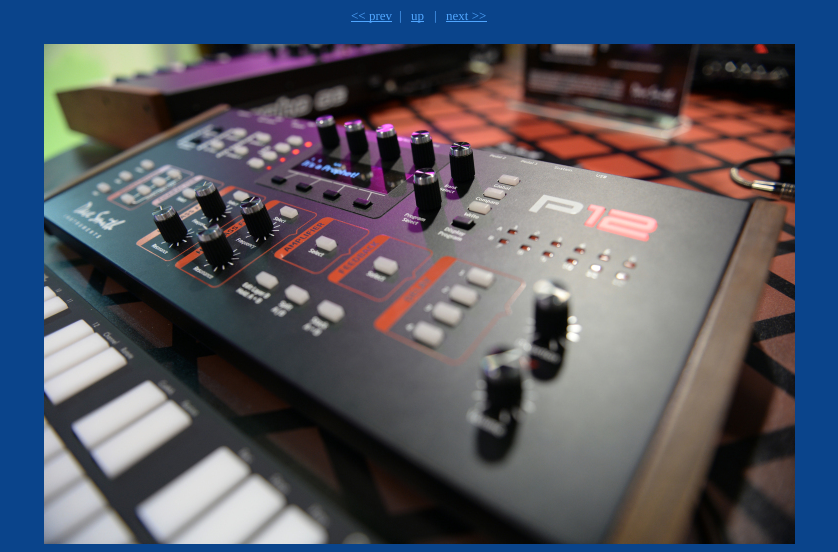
#include <cairo/cairo.h>
#include <math.h>
#include <stddef.h>

static cairo_t *cr;

static void use_color(int r, int g, int b) {
  cairo_set_source_rgb(cr, r / 255.0, g / 255.0, b / 255.0);
}

static void text(double x, double y, const char *s, const char *family, double size, int italic, int bold, int r, int g, int b) {
  cairo_select_font_face(cr, family, italic ? CAIRO_FONT_SLANT_ITALIC : CAIRO_FONT_SLANT_NORMAL,
    bold ? CAIRO_FONT_WEIGHT_BOLD : CAIRO_FONT_WEIGHT_NORMAL);
  cairo_set_font_size(cr, size);
  use_color(r, g, b);
  cairo_move_to(cr, x, y);
  cairo_show_text(cr, s);
}

static void box(double x, double y, double w, double h, int r, int g, int b) {
  use_color(r, g, b);
  cairo_rectangle(cr, x, y, w, h);
  cairo_fill(cr);
}

static void picture(const char *path, double x, double y, double w, double h) {
  cairo_surface_t *image = cairo_image_surface_create_from_png(path);
  cairo_save(cr);
  cairo_set_source_surface(cr, image, x, y);
  cairo_rectangle(cr, x, y, w, h);
  cairo_fill(cr);
  cairo_restore(cr);
  cairo_surface_destroy(image);
}

static void draw(void) {
  use_color(10, 68, 139);
  cairo_paint(cr);
  box(351, 21, 41, 1, 80, 166, 255);
  box(411, 21, 13, 1, 80, 166, 255);
  box(446, 21, 41, 1, 80, 166, 255);
  picture("img_01.png", 44, 44, 751, 500);
  text(351, 20, "<< prev", "Liberation Serif", 13, 0, 0, 80, 166, 255);
  text(399, 20, "|", "Liberation Serif", 13, 0, 0, 80, 166, 255);
  text(411, 20, "up", "Liberation Serif", 13, 0, 0, 80, 166, 255);
  text(434, 20, "|", "Liberation Serif", 13, 0, 0, 80, 166, 255);
  text(446, 20, "next >>", "Liberation Serif", 13, 0, 0, 80, 166, 255);
}

int main(void) {
  cairo_surface_t *surface = cairo_image_surface_create(CAIRO_FORMAT_RGB24, 838, 552);
  cr = cairo_create(surface);
  cairo_font_options_t *options = cairo_font_options_create();
  cairo_font_options_set_hint_metrics(options, CAIRO_HINT_METRICS_OFF);
  cairo_font_options_set_hint_style(options, CAIRO_HINT_STYLE_NONE);
  cairo_set_font_options(cr, options);
  cairo_set_miter_limit(cr, 4);
  draw();
  cairo_surface_write_to_png(surface, "out.png");
  cairo_font_options_destroy(options);
  cairo_destroy(cr);
  cairo_surface_destroy(surface);
  return 0;
}
